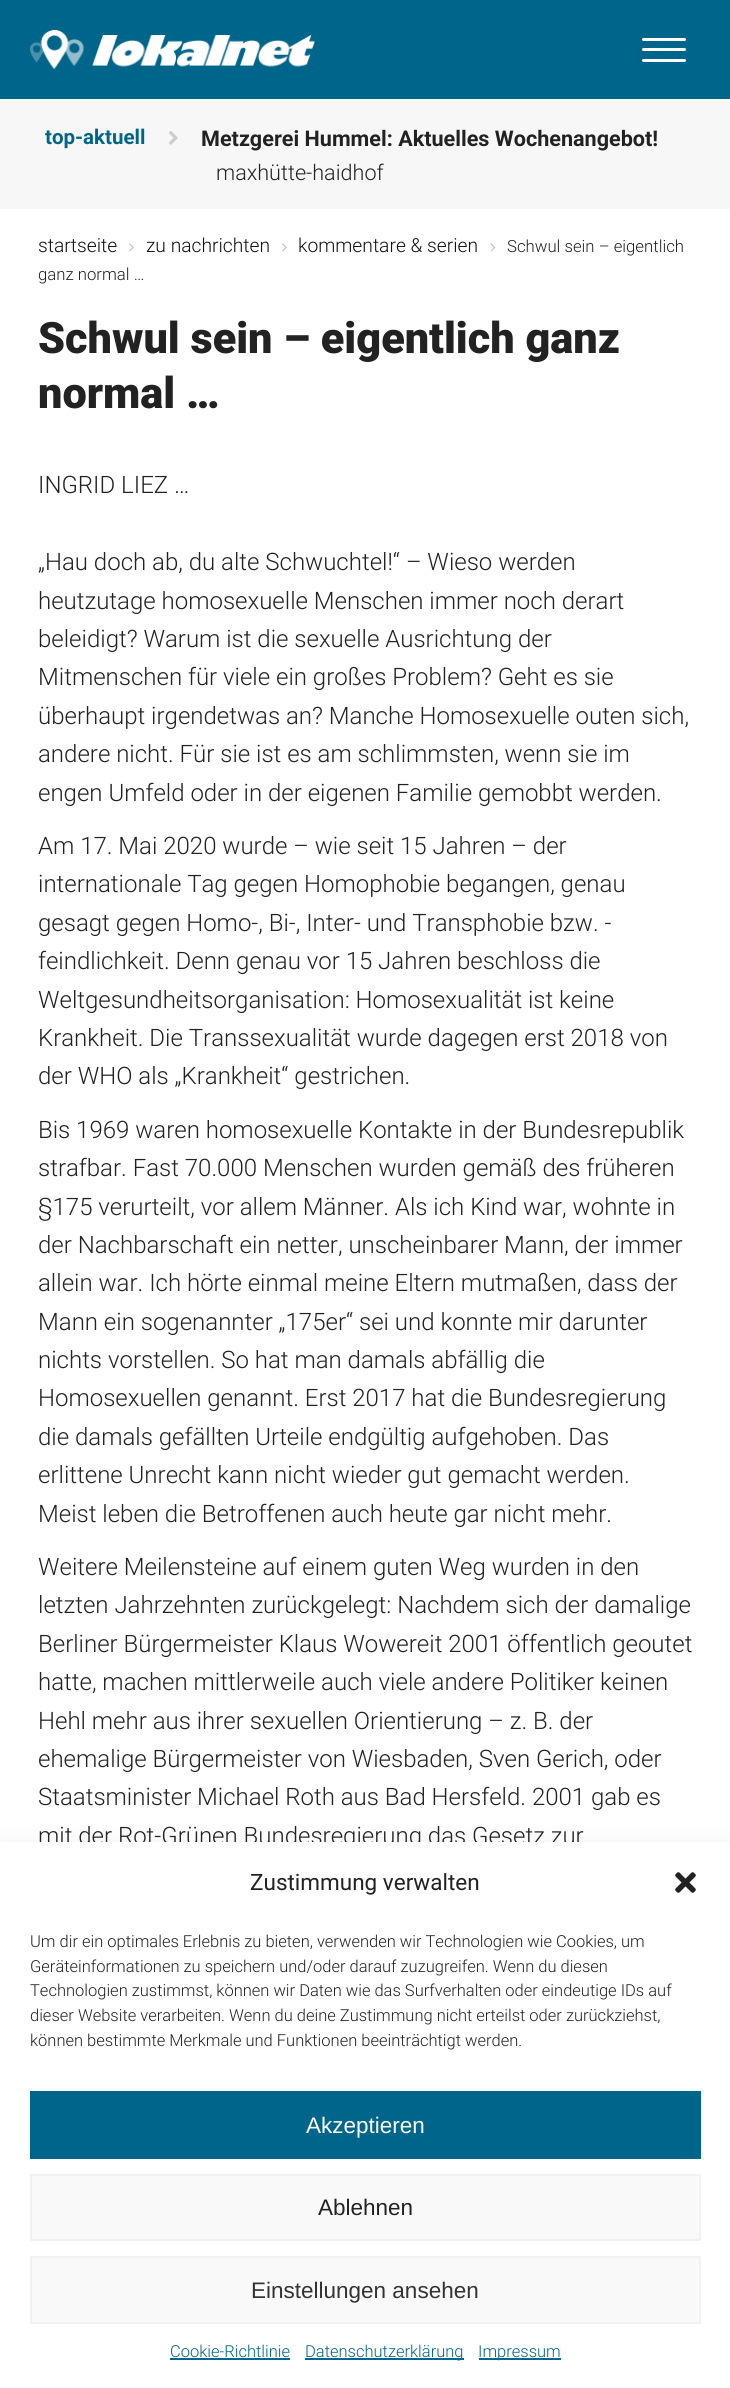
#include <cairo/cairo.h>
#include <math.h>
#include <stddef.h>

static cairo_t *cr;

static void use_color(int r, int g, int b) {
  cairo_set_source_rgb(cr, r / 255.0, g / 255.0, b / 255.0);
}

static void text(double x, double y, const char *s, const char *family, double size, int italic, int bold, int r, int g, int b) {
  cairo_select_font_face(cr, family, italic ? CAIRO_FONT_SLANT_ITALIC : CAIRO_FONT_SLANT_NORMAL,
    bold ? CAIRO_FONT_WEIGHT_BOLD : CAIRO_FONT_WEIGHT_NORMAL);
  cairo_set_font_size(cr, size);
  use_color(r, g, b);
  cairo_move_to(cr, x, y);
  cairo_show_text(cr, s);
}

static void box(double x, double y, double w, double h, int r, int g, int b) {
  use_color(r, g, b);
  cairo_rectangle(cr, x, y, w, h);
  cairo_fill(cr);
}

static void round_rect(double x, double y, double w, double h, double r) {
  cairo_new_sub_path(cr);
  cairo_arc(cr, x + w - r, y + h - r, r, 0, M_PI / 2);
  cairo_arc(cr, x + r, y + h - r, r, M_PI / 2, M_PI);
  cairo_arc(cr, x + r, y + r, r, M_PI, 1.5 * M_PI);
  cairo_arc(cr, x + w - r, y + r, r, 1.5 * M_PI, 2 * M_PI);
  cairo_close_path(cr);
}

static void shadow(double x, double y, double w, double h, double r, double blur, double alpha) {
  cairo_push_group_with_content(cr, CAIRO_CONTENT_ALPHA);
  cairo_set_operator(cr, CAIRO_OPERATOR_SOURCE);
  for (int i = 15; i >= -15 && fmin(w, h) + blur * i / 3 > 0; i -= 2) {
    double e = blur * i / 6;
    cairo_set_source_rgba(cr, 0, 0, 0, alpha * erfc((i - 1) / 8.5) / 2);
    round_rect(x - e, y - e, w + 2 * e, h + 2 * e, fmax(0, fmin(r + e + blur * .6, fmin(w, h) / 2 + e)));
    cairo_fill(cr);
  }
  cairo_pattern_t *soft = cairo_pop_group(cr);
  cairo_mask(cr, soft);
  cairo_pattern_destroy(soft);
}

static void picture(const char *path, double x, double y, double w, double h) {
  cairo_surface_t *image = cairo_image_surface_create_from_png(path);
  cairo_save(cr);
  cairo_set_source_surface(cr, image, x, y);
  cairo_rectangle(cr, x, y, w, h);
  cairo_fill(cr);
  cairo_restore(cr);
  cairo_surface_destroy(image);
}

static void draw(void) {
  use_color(255, 255, 255);
  cairo_paint(cr);
  box(0, 0, 730, 99, 0, 101, 138);
  use_color(255, 255, 255);
  round_rect(642, 38, 44, 3, 1.5);
  cairo_fill(cr);
  round_rect(642, 48, 44, 3, 1.5);
  cairo_fill(cr);
  round_rect(642, 59, 44, 3, 1.5);
  cairo_fill(cr);
  picture("img_01.png", 30, 30, 285, 40);
  box(0, 99, 730, 110, 247, 247, 247);
  picture("img_02.png", 169, 131, 9, 14);
  picture("img_03.png", 129, 243, 5, 9);
  picture("img_03.png", 282, 243, 5, 9);
  picture("img_04.png", 490, 243, 6, 9);
  use_color(0, 0, 0);
  shadow(0, 1857, 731, 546, 0, 15, 0.19);
  text(45, 144, "top-aktuell", "Roboto", 20.5, 0, 1, 0, 101, 138);
  text(201, 146, "Metzgerei Hummel: Aktuelles Wochenangebot!", "Roboto", 21.6, 0, 1, 34, 34, 34);
  text(216, 180, "maxhütte-haidhof", "Roboto Light", 21.6, 0, 0, 34, 34, 34);
  text(38, 252, "startseite", "Roboto Light", 19.25, 0, 0, 17, 17, 17);
  text(146, 252, "zu nachrichten", "Roboto Light", 19.25, 0, 0, 17, 17, 17);
  text(298, 252, "kommentare & serien", "Roboto Light", 19.25, 0, 0, 17, 17, 17);
  text(507, 252, "Schwul sein – eigentlich", "Roboto Light", 16.75, 0, 0, 34, 34, 34);
  text(38, 280, "ganz normal …", "Roboto Light", 16.75, 0, 0, 34, 34, 34);
  text(38, 353, "Schwul sein – eigentlich ganz", "Roboto Black", 43.25, 0, 0, 34, 34, 34);
  text(38, 408, "normal …", "Roboto Black", 43.25, 0, 0, 34, 34, 34);
  text(38, 493, "INGRID LIEZ …", "Roboto Light", 24, 0, 0, 34, 34, 34);
  text(38, 570, "„Hau doch ab, du alte Schwuchtel!“ – Wieso werden", "Roboto Light", 24, 0, 0, 34, 34, 34);
  text(38, 609, "heutzutage homosexuelle Menschen immer noch derart", "Roboto Light", 24, 0, 0, 34, 34, 34);
  text(38, 647, "beleidigt? Warum ist die sexuelle Ausrichtung der", "Roboto Light", 24, 0, 0, 34, 34, 34);
  text(38, 685, "Mitmenschen für viele ein großes Problem? Geht es sie", "Roboto Light", 24, 0, 0, 34, 34, 34);
  text(38, 724, "überhaupt irgendetwas an? Manche Homosexuelle outen sich,", "Roboto Light", 24, 0, 0, 34, 34, 34);
  text(38, 762, "andere nicht. Für sie ist es am schlimmsten, wenn sie im", "Roboto Light", 24, 0, 0, 34, 34, 34);
  text(38, 801, "engen Umfeld oder in der eigenen Familie gemobbt werden.", "Roboto Light", 24, 0, 0, 34, 34, 34);
  text(38, 854, "Am 17. Mai 2020 wurde – wie seit 15 Jahren – der", "Roboto Light", 24, 0, 0, 34, 34, 34);
  text(38, 892, "internationale Tag gegen Homophobie begangen, genau", "Roboto Light", 24, 0, 0, 34, 34, 34);
  text(38, 931, "gesagt gegen Homo-, Bi-, Inter- und Transphobie bzw. -", "Roboto Light", 24, 0, 0, 34, 34, 34);
  text(38, 969, "feindlichkeit. Denn genau vor 15 Jahren beschloss die", "Roboto Light", 24, 0, 0, 34, 34, 34);
  text(38, 1008, "Weltgesundheitsorganisation: Homosexualität ist keine", "Roboto Light", 24, 0, 0, 34, 34, 34);
  text(38, 1046, "Krankheit. Die Transsexualität wurde dagegen erst 2018 von", "Roboto Light", 24, 0, 0, 34, 34, 34);
  text(38, 1084, "der WHO als „Krankheit“ gestrichen.", "Roboto Light", 24, 0, 0, 34, 34, 34);
  text(38, 1138, "Bis 1969 waren homosexuelle Kontakte in der Bundesrepublik", "Roboto Light", 24, 0, 0, 34, 34, 34);
  text(38, 1176, "strafbar. Fast 70.000 Menschen wurden gemäß des früheren", "Roboto Light", 24, 0, 0, 34, 34, 34);
  text(38, 1215, "§175 verurteilt, vor allem Männer. Als ich Kind war, wohnte in", "Roboto Light", 24, 0, 0, 34, 34, 34);
  text(38, 1253, "der Nachbarschaft ein netter, unscheinbarer Mann, der immer", "Roboto Light", 24, 0, 0, 34, 34, 34);
  text(38, 1291, "allein war. Ich hörte einmal meine Eltern mutmaßen, dass der", "Roboto Light", 24, 0, 0, 34, 34, 34);
  text(38, 1330, "Mann ein sogenannter „175er“ sei und konnte mir darunter", "Roboto Light", 24, 0, 0, 34, 34, 34);
  text(38, 1368, "nichts vorstellen. So hat man damals abfällig die", "Roboto Light", 24, 0, 0, 34, 34, 34);
  text(38, 1406, "Homosexuellen genannt. Erst 2017 hat die Bundesregierung", "Roboto Light", 24, 0, 0, 34, 34, 34);
  text(38, 1445, "die damals gefällten Urteile endgültig aufgehoben. Das", "Roboto Light", 24, 0, 0, 34, 34, 34);
  text(38, 1483, "erlittene Unrecht kann nicht wieder gut gemacht werden.", "Roboto Light", 24, 0, 0, 34, 34, 34);
  text(38, 1522, "Meist leben die Betroffenen auch heute gar nicht mehr.", "Roboto Light", 24, 0, 0, 34, 34, 34);
  text(38, 1575, "Weitere Meilensteine auf einem guten Weg wurden in den", "Roboto Light", 24, 0, 0, 34, 34, 34);
  text(38, 1613, "letzten Jahrzehnten zurückgelegt: Nachdem sich der damalige", "Roboto Light", 24, 0, 0, 34, 34, 34);
  text(38, 1652, "Berliner Bürgermeister Klaus Wowereit 2001 öffentlich geoutet", "Roboto Light", 24, 0, 0, 34, 34, 34);
  text(38, 1690, "hatte, machen mittlerweile auch viele andere Politiker keinen", "Roboto Light", 24, 0, 0, 34, 34, 34);
  text(38, 1729, "Hehl mehr aus ihrer sexuellen Orientierung – z. B. der", "Roboto Light", 24, 0, 0, 34, 34, 34);
  text(38, 1767, "ehemalige Bürgermeister von Wiesbaden, Sven Gerich, oder", "Roboto Light", 24, 0, 0, 34, 34, 34);
  text(38, 1805, "Staatsminister Michael Roth aus Bad Hersfeld. 2001 gab es", "Roboto Light", 24, 0, 0, 34, 34, 34);
  text(38, 1844, "mit der Rot-Grünen Bundesregierung das Gesetz zur", "Roboto Light", 24, 0, 0, 34, 34, 34);
  box(0, 1842, 730, 546, 255, 255, 255);
  text(250, 1890, "Zustimmung verwalten", "Roboto", 22.5, 0, 0, 34, 34, 34);
  picture("img_05.png", 675, 1872, 21, 21);
  text(30, 1947, "Um dir ein optimales Erlebnis zu bieten, verwenden wir Technologien wie Cookies, um", "Roboto Light", 16.5, 0, 0, 34, 34, 34);
  text(30, 1972, "Geräteinformationen zu speichern und/oder darauf zuzugreifen. Wenn du diesen", "Roboto Light", 16.5, 0, 0, 34, 34, 34);
  text(30, 1996, "Technologien zustimmst, können wir Daten wie das Surfverhalten oder eindeutige IDs auf", "Roboto Light", 16.5, 0, 0, 34, 34, 34);
  text(30, 2021, "dieser Website verarbeiten. Wenn du deine Zustimmung nicht erteilst oder zurückziehst,", "Roboto Light", 16.5, 0, 0, 34, 34, 34);
  text(30, 2046, "können bestimmte Merkmale und Funktionen beeinträchtigt werden.", "Roboto Light", 16.5, 0, 0, 34, 34, 34);
  box(30, 2091, 671, 68, 0, 101, 138);
  text(306, 2133, "Akzeptieren", "Liberation Sans", 22.5, 0, 0, 255, 255, 255);
  use_color(249, 249, 249);
  cairo_rectangle(cr, 31, 2175, 669, 65);
  cairo_fill_preserve(cr);
  use_color(242, 242, 242);
  cairo_stroke(cr);
  text(318, 2215, "Ablehnen", "Liberation Sans", 22.5, 0, 0, 34, 34, 34);
  use_color(249, 249, 249);
  cairo_rectangle(cr, 31, 2257, 669, 66);
  cairo_fill_preserve(cr);
  use_color(242, 242, 242);
  cairo_stroke(cr);
  text(251, 2298, "Einstellungen ansehen", "Liberation Sans", 22.5, 0, 0, 51, 51, 51);
  text(170, 2357, "Cookie-Richtlinie", "Roboto Light", 16.5, 0, 0, 0, 101, 138);
  box(170, 2358, 120, 2, 0, 101, 138);
  box(305, 2358, 159, 2, 0, 101, 138);
  text(305, 2357, "Datenschutzerklärung", "Roboto Light", 16.5, 0, 0, 0, 101, 138);
  box(479, 2358, 82, 2, 0, 101, 138);
  text(478, 2357, "Impressum", "Roboto Light", 16.5, 0, 0, 0, 101, 138);
}

int main(void) {
  cairo_surface_t *surface = cairo_image_surface_create(CAIRO_FORMAT_RGB24, 730, 2388);
  cr = cairo_create(surface);
  cairo_font_options_t *options = cairo_font_options_create();
  cairo_font_options_set_hint_metrics(options, CAIRO_HINT_METRICS_OFF);
  cairo_font_options_set_hint_style(options, CAIRO_HINT_STYLE_NONE);
  cairo_set_font_options(cr, options);
  cairo_set_miter_limit(cr, 4);
  draw();
  cairo_surface_write_to_png(surface, "out.png");
  cairo_font_options_destroy(options);
  cairo_destroy(cr);
  cairo_surface_destroy(surface);
  return 0;
}
